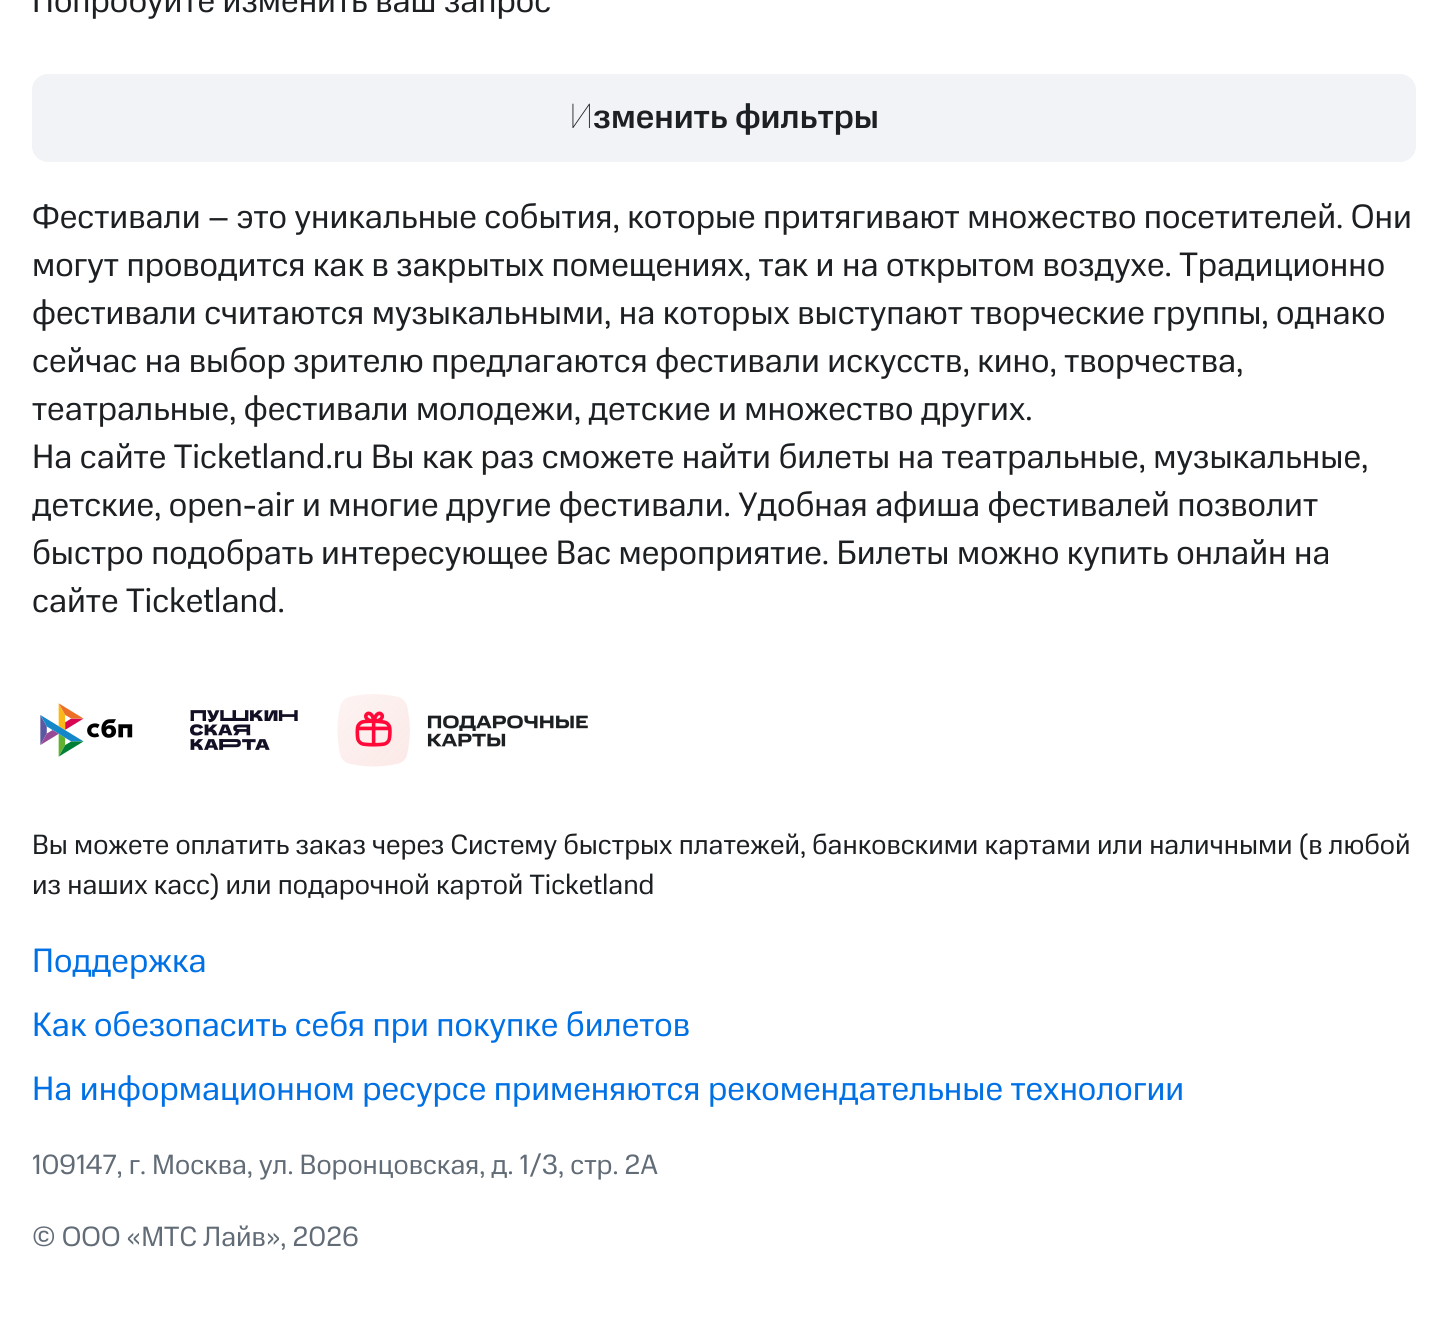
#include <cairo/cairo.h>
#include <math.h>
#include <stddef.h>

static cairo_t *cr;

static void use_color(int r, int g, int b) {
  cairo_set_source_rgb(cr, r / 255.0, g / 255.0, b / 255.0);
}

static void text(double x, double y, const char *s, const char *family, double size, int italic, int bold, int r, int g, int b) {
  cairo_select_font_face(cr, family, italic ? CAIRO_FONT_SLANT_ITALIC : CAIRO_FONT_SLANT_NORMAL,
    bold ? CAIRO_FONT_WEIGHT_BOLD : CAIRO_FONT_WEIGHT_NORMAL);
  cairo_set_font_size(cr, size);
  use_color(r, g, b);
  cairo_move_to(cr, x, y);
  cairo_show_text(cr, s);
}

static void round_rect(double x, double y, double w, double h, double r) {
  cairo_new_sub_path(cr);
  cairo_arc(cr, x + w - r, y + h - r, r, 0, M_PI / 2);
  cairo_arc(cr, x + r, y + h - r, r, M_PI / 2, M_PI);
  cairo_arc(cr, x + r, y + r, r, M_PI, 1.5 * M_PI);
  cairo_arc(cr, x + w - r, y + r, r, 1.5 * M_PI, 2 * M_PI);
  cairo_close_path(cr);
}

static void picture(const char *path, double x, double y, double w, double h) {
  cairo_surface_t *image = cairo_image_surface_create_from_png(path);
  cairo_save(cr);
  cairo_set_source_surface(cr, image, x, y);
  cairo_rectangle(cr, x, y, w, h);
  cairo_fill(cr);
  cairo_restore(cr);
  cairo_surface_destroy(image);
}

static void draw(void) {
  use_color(255, 255, 255);
  cairo_paint(cr);
  use_color(242, 243, 247);
  round_rect(32, 74, 1384, 88, 16);
  cairo_fill(cr);
  picture("img_01.png", 40, 703, 93, 54);
  picture("img_02.png", 190, 710, 108, 40);
  picture("img_03.png", 337, 694, 251, 73);
  text(32, 12, "Попробуйте изменить ваш запрос", "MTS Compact", 34, 0, 0, 29, 32, 35);
  text(569, 128, "И", "Noto Sans Thin", 34, 0, 0, 29, 32, 35);
  text(593, 128, "зменить фильтры", "MTS Compact Medium", 34, 0, 0, 29, 32, 35);
  text(32, 228, "Фестивали – это уникальные события, которые притягивают множество посетителей. Они", "MTS Compact", 34, 0, 0, 29, 32, 35);
  text(32, 276, "могут проводится как в закрытых помещениях, так и на открытом воздухе. Традиционно", "MTS Compact", 34, 0, 0, 29, 32, 35);
  text(32, 324, "фестивали считаются музыкальными, на которых выступают творческие группы, однако", "MTS Compact", 34, 0, 0, 29, 32, 35);
  text(32, 372, "сейчас на выбор зрителю предлагаются фестивали искусств, кино, творчества,", "MTS Compact", 34, 0, 0, 29, 32, 35);
  text(32, 420, "театральные, фестивали молодежи, детские и множество других.", "MTS Compact", 34, 0, 0, 29, 32, 35);
  text(32, 468, "На сайте Ticketland.ru Вы как раз сможете найти билеты на театральные, музыкальные,", "MTS Compact", 34, 0, 0, 29, 32, 35);
  text(32, 516, "детские, open-air и многие другие фестивали. Удобная афиша фестивалей позволит", "MTS Compact", 34, 0, 0, 29, 32, 35);
  text(32, 564, "быстро подобрать интересующее Вас мероприятие. Билеты можно купить онлайн на", "MTS Compact", 34, 0, 0, 29, 32, 35);
  text(32, 612, "сайте Ticketland.", "MTS Compact", 34, 0, 0, 29, 32, 35);
  text(32, 854, "Вы можете оплатить заказ через Систему быстрых платежей, банковскими картами или наличными (в любой", "MTS Compact", 28, 0, 0, 29, 32, 35);
  text(32, 894, "из наших касс) или подарочной картой Ticketland", "MTS Compact", 28, 0, 0, 29, 32, 35);
  text(32, 972, "Поддержка", "MTS Compact", 34, 0, 0, 0, 112, 229);
  text(32, 1036, "Как обезопасить себя при покупке билетов", "MTS Compact", 34, 0, 0, 0, 112, 229);
  text(32, 1100, "На информационном ресурсе применяются рекомендательные технологии", "MTS Compact", 34, 0, 0, 0, 112, 229);
  text(32, 1174, "109147, г. Москва, ул. Воронцовская, д. 1/3, стр. 2А", "MTS Compact", 28, 0, 0, 98, 108, 119);
  text(32, 1246, "© ООО «МТС Лайв», 2026", "MTS Compact", 28, 0, 0, 98, 108, 119);
}

int main(void) {
  cairo_surface_t *surface = cairo_image_surface_create(CAIRO_FORMAT_RGB24, 1448, 1322);
  cr = cairo_create(surface);
  cairo_font_options_t *options = cairo_font_options_create();
  cairo_font_options_set_hint_metrics(options, CAIRO_HINT_METRICS_OFF);
  cairo_font_options_set_hint_style(options, CAIRO_HINT_STYLE_NONE);
  cairo_set_font_options(cr, options);
  cairo_set_miter_limit(cr, 4);
  draw();
  cairo_surface_write_to_png(surface, "out.png");
  cairo_font_options_destroy(options);
  cairo_destroy(cr);
  cairo_surface_destroy(surface);
  return 0;
}
